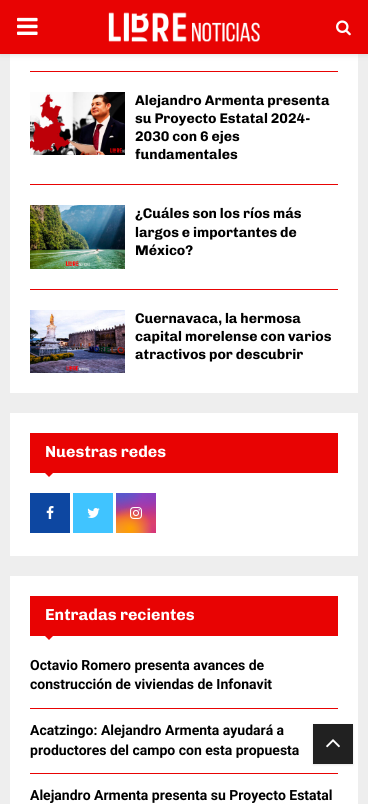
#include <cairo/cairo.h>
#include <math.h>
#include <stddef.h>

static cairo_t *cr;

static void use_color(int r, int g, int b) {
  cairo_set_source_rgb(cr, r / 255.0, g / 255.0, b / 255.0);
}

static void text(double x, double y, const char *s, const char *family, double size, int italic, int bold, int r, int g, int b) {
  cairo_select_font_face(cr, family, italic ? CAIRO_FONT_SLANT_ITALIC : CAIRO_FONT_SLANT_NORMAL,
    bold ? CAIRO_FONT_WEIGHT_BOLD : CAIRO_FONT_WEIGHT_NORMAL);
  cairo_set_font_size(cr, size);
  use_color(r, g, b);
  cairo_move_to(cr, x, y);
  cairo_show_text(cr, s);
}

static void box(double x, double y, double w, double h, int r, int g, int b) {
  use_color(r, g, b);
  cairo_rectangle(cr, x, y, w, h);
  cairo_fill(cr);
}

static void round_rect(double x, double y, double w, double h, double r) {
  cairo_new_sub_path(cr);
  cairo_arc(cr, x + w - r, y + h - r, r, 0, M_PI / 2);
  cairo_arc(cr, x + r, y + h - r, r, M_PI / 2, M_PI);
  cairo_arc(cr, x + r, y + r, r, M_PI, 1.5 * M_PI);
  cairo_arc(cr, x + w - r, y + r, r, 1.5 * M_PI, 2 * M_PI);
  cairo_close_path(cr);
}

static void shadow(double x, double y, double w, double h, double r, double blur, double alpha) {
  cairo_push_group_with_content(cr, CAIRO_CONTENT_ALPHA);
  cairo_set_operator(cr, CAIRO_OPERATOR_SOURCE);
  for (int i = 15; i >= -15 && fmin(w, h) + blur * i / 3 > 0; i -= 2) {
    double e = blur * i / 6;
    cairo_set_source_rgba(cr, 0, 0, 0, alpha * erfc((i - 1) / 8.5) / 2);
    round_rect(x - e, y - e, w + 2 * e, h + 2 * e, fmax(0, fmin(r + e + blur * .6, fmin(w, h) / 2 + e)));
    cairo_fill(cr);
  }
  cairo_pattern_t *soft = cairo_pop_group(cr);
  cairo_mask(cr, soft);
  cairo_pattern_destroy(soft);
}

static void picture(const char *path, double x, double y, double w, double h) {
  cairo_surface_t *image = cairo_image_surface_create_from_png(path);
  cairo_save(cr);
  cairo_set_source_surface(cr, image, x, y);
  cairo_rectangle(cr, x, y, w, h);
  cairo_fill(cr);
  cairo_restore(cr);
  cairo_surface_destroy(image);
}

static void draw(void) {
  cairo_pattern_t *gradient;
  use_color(238, 238, 238);
  cairo_paint(cr);
  box(10, 54, 348, 339, 255, 255, 255);
  use_color(190, 190, 190);
  shadow(0, 1, 368, 54, 0, 2.5, 0.46);
  box(0, 0, 368, 54, 232, 3, 3);
  picture("img_01.png", 17, 17, 21, 18);
  picture("img_02.png", 108, 12, 152, 30);
  picture("img_03.png", 336, 20, 15, 16);
  box(30, 71, 308, 1, 232, 3, 3);
  box(30, 184, 308, 1, 232, 3, 3);
  picture("img_04.png", 30, 92, 95, 63);
  box(30, 289, 308, 1, 232, 3, 3);
  picture("img_05.png", 30, 205, 95, 64);
  picture("img_06.png", 30, 310, 95, 63);
  box(10, 413, 348, 143, 255, 255, 255);
  box(30, 433, 308, 40, 232, 3, 3);
  cairo_new_path(cr);
  cairo_move_to(cr, 45, 473);
  cairo_line_to(cr, 53, 473);
  cairo_line_to(cr, 49, 477);
  cairo_close_path(cr);
  cairo_fill(cr);
  box(30, 493, 40, 40, 13, 71, 161);
  picture("img_07.png", 46, 506, 8, 13);
  box(73, 493, 40, 40, 64, 196, 255);
  picture("img_08.png", 87, 508, 13, 10);
  gradient = cairo_pattern_create_linear(136, 493, 136, 533);
  cairo_pattern_add_color_stop_rgba(gradient, 0, 0.396, 0.349, 0.792, 1);
  cairo_pattern_add_color_stop_rgba(gradient, 0.3, 0.737, 0.192, 0.561, 1);
  cairo_pattern_add_color_stop_rgba(gradient, 0.5, 0.89, 0.247, 0.373, 1);
  cairo_pattern_add_color_stop_rgba(gradient, 0.7, 0.969, 0.463, 0.22, 1);
  cairo_pattern_add_color_stop_rgba(gradient, 1, 0.996, 0.776, 0.427, 1);
  cairo_set_source(cr, gradient);
  cairo_pattern_destroy(gradient);
  cairo_rectangle(cr, 116, 493, 40, 40);
  cairo_fill(cr);
  gradient = cairo_pattern_create_radial(156, 533, 0, 156, 533, 57);
  cairo_pattern_add_color_stop_rgba(gradient, 0, 0.831, 0.192, 0.471, 1);
  cairo_pattern_add_color_stop_rgba(gradient, 1, 0.831, 0.192, 0.471, 0);
  cairo_set_source(cr, gradient);
  cairo_pattern_destroy(gradient);
  cairo_rectangle(cr, 116, 493, 40, 40);
  cairo_fill(cr);
  gradient = cairo_pattern_create_radial(0, 0, 0, 0, 0, 1);
  cairo_pattern_set_matrix(gradient, &(cairo_matrix_t){1.0 / 34, 0, 0, 1.0 / 68, -1.0 * 140 / 34, -1.0 * 485 / 68});
  cairo_pattern_add_color_stop_rgba(gradient, 0, 0.561, 0.267, 0.78, 1);
  cairo_pattern_add_color_stop_rgba(gradient, 0.5, 0.561, 0.267, 0.78, 0);
  cairo_set_source(cr, gradient);
  cairo_pattern_destroy(gradient);
  cairo_rectangle(cr, 125, 493, 30, 25);
  cairo_fill(cr);
  gradient = cairo_pattern_create_radial(156, 493, 0, 156, 493, 57);
  cairo_pattern_add_color_stop_rgba(gradient, 0, 0.537, 0.239, 0.761, 1);
  cairo_pattern_add_color_stop_rgba(gradient, 0.5, 0.537, 0.239, 0.761, 0);
  cairo_set_source(cr, gradient);
  cairo_pattern_destroy(gradient);
  cairo_rectangle(cr, 131, 493, 25, 28);
  cairo_fill(cr);
  gradient = cairo_pattern_create_radial(0, 0, 0, 0, 0, 1);
  cairo_pattern_set_matrix(gradient, &(cairo_matrix_t){1.0 / 45, 0, 0, 1.0 / 85, -1.0 * 124 / 45, -1.0 * 473 / 85});
  cairo_pattern_add_color_stop_rgba(gradient, 0, 0.322, 0.345, 0.812, 1);
  cairo_pattern_add_color_stop_rgba(gradient, 0.5, 0.322, 0.345, 0.812, 0);
  cairo_set_source(cr, gradient);
  cairo_pattern_destroy(gradient);
  cairo_rectangle(cr, 116, 493, 26, 22);
  cairo_fill(cr);
  gradient = cairo_pattern_create_radial(0, 0, 0, 0, 0, 1);
  cairo_pattern_set_matrix(gradient, &(cairo_matrix_t){1.0 / 57, 0, 0, 1.0 / 71, -1.0 * 116 / 57, -1.0 * 483 / 71});
  cairo_pattern_add_color_stop_rgba(gradient, 0, 0.322, 0.345, 0.812, 1);
  cairo_pattern_add_color_stop_rgba(gradient, 0.5, 0.322, 0.345, 0.812, 0);
  cairo_set_source(cr, gradient);
  cairo_pattern_destroy(gradient);
  cairo_rectangle(cr, 116, 493, 26, 25);
  cairo_fill(cr);
  gradient = cairo_pattern_create_radial(116, 549, 0, 116, 549, 69);
  cairo_pattern_add_color_stop_rgba(gradient, 0, 0.937, 0.631, 0.11, 1);
  cairo_pattern_add_color_stop_rgba(gradient, 0.5, 0.937, 0.631, 0.11, 0);
  cairo_set_source(cr, gradient);
  cairo_pattern_destroy(gradient);
  cairo_rectangle(cr, 116, 515, 29, 18);
  cairo_fill(cr);
  gradient = cairo_pattern_create_radial(130, 529, 0, 130, 529, 44);
  cairo_pattern_add_color_stop_rgba(gradient, 0, 1, 0.631, 0, 1);
  cairo_pattern_add_color_stop_rgba(gradient, 0.5, 1, 0.631, 0, 0);
  cairo_set_source(cr, gradient);
  cairo_pattern_destroy(gradient);
  cairo_rectangle(cr, 116, 507, 36, 26);
  cairo_fill(cr);
  picture("img_09.png", 130, 507, 12, 12);
  box(10, 576, 348, 228, 255, 255, 255);
  box(30, 596, 308, 40, 232, 3, 3);
  cairo_new_path(cr);
  cairo_move_to(cr, 45, 636);
  cairo_line_to(cr, 53, 636);
  cairo_line_to(cr, 49, 640);
  cairo_close_path(cr);
  cairo_fill(cr);
  box(30, 708, 308, 1, 232, 3, 3);
  box(30, 773, 308, 1, 232, 3, 3);
  use_color(0, 0, 0);
  shadow(313, 725, 40, 40, 0, 1, 0.1);
  box(313, 724, 40, 40, 33, 33, 33);
  picture("img_10.png", 326, 739, 14, 9);
  text(135, 105, "Alejandro Armenta presenta", "Chivo", 14, 0, 1, 0, 0, 0);
  text(135, 123, "su Proyecto Estatal 2024-", "Chivo", 14, 0, 1, 0, 0, 0);
  text(135, 141, "2030 con 6 ejes", "Chivo", 14, 0, 1, 0, 0, 0);
  text(135, 159, "fundamentales", "Chivo", 14, 0, 1, 0, 0, 0);
  text(135, 218, "¿Cuáles son los ríos más", "Chivo", 14, 0, 1, 0, 0, 0);
  text(135, 237, "largos e importantes de", "Chivo", 14, 0, 1, 0, 0, 0);
  text(135, 255, "México?", "Chivo", 14, 0, 1, 0, 0, 0);
  text(135, 323, "Cuernavaca, la hermosa", "Chivo", 14, 0, 1, 0, 0, 0);
  text(135, 341, "capital morelense con varios", "Chivo", 14, 0, 1, 0, 0, 0);
  text(135, 359, "atractivos por descubrir", "Chivo", 14, 0, 1, 0, 0, 0);
  text(45, 457, "Nuestras redes", "Chivo", 16, 0, 1, 255, 255, 255);
  text(45, 620, "Entradas recientes", "Chivo", 16, 0, 1, 255, 255, 255);
  text(30, 670, "Octavio Romero presenta avances de", "Roboto", 14, 0, 1, 0, 0, 0);
  text(30, 689, "construcción de viviendas de Infonavit", "Roboto", 14, 0, 1, 0, 0, 0);
  text(30, 735, "Acatzingo: Alejandro Armenta ayudará a", "Roboto", 14, 0, 1, 0, 0, 0);
  text(30, 755, "productores del campo con esta propuesta", "Roboto", 14, 0, 1, 0, 0, 0);
  text(30, 800, "Alejandro Armenta presenta su Proyecto Estatal", "Roboto", 14, 0, 1, 0, 0, 0);
}

int main(void) {
  cairo_surface_t *surface = cairo_image_surface_create(CAIRO_FORMAT_RGB24, 368, 804);
  cr = cairo_create(surface);
  cairo_font_options_t *options = cairo_font_options_create();
  cairo_font_options_set_hint_metrics(options, CAIRO_HINT_METRICS_OFF);
  cairo_font_options_set_hint_style(options, CAIRO_HINT_STYLE_NONE);
  cairo_set_font_options(cr, options);
  cairo_set_miter_limit(cr, 4);
  draw();
  cairo_surface_write_to_png(surface, "out.png");
  cairo_font_options_destroy(options);
  cairo_destroy(cr);
  cairo_surface_destroy(surface);
  return 0;
}
